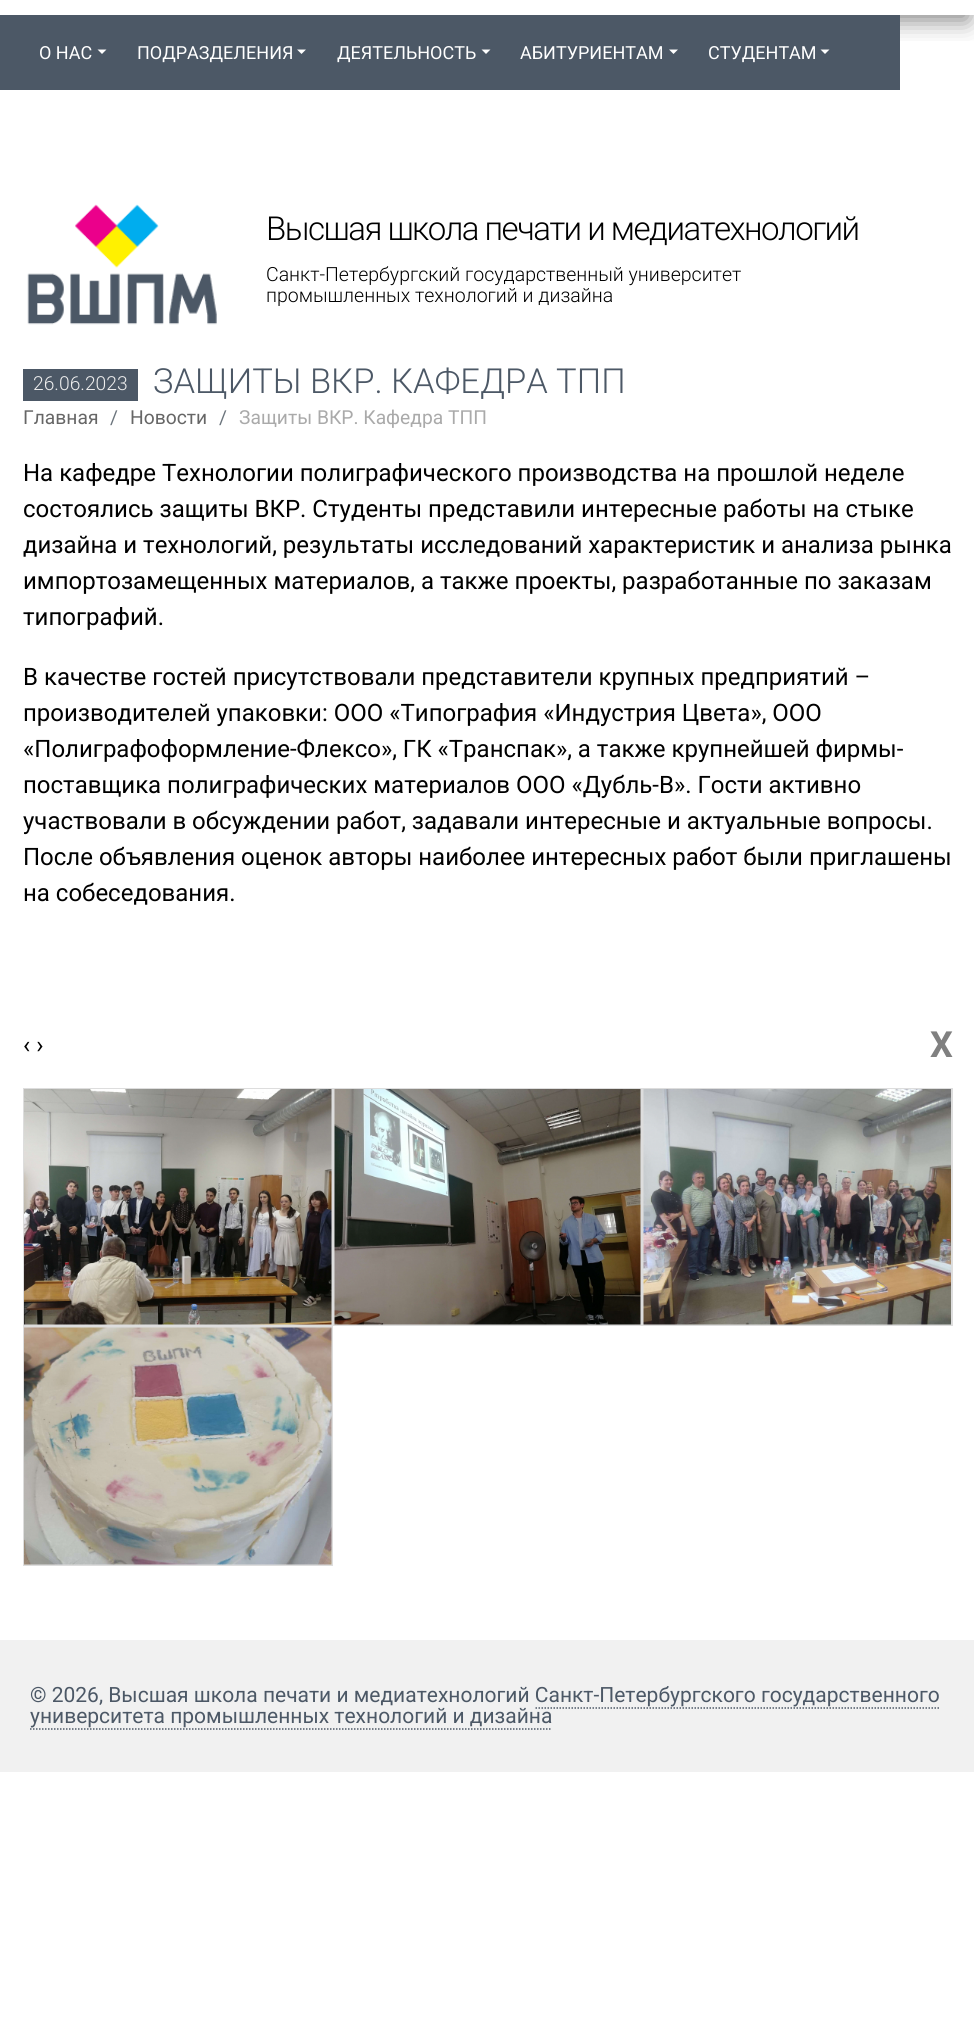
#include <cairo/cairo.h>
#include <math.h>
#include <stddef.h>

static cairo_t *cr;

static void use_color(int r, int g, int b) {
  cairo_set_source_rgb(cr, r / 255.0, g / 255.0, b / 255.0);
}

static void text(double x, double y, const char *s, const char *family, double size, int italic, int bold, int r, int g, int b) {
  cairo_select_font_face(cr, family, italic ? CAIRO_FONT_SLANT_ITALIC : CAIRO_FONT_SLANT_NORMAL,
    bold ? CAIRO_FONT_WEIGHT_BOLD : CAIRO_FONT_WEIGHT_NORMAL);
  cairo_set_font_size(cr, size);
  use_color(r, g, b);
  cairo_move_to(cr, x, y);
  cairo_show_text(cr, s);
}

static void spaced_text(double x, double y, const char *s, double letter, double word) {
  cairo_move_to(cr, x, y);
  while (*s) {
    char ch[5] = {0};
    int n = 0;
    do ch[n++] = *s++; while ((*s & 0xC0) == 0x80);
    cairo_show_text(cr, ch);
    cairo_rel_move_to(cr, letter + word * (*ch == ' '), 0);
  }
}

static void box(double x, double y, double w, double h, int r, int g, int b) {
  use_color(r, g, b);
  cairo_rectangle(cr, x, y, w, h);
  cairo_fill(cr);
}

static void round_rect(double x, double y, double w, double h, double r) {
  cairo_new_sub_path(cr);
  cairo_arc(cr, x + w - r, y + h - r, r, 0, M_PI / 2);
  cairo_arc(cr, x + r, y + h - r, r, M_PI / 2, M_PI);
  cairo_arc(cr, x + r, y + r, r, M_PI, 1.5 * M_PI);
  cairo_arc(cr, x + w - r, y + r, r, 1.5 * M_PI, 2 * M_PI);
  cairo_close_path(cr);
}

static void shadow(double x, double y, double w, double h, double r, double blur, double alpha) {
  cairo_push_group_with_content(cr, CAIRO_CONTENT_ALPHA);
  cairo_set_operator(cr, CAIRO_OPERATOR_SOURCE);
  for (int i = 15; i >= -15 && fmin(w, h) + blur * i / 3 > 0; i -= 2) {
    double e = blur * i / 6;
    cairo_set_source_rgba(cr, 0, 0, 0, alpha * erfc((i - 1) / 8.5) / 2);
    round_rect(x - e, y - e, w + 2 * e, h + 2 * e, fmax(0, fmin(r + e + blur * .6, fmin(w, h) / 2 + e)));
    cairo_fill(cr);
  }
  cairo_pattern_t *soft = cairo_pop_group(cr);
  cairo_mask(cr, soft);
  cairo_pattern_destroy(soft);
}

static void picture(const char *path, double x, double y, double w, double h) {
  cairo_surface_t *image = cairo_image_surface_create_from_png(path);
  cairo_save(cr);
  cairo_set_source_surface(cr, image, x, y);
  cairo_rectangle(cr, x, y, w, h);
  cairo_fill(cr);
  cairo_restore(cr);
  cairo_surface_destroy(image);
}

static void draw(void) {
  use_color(255, 255, 255);
  cairo_paint(cr);
  cairo_save(cr);
  cairo_rectangle(cr, 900, 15, 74, 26);
  cairo_clip(cr);
  use_color(0, 0, 0);
  shadow(-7, 5, 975, 15, 0, 12, 0.5);
  cairo_restore(cr);
  box(0, 15, 900, 75, 76, 88, 102);
  use_color(255, 255, 255);
  cairo_new_path(cr);
  cairo_move_to(cr, 97.5, 49.5);
  cairo_line_to(cr, 106.5, 49.5);
  cairo_line_to(cr, 102, 54);
  cairo_close_path(cr);
  cairo_fill(cr);
  cairo_new_path(cr);
  cairo_move_to(cr, 297, 49.5);
  cairo_line_to(cr, 306, 49.5);
  cairo_line_to(cr, 301.5, 54);
  cairo_close_path(cr);
  cairo_fill(cr);
  cairo_new_path(cr);
  cairo_move_to(cr, 481.5, 49.5);
  cairo_line_to(cr, 490.5, 49.5);
  cairo_line_to(cr, 486, 54);
  cairo_close_path(cr);
  cairo_fill(cr);
  cairo_new_path(cr);
  cairo_move_to(cr, 669, 49.5);
  cairo_line_to(cr, 678, 49.5);
  cairo_line_to(cr, 673.5, 54);
  cairo_close_path(cr);
  cairo_fill(cr);
  cairo_new_path(cr);
  cairo_move_to(cr, 820.5, 49.5);
  cairo_line_to(cr, 829.5, 49.5);
  cairo_line_to(cr, 825, 54);
  cairo_close_path(cr);
  cairo_fill(cr);
  picture("img_01.png", 27, 204, 190, 121);
  box(23, 369, 115, 32, 76, 88, 102);
  cairo_rectangle(cr, 24, 1089, 308, 236);
  use_color(221, 221, 221);
  cairo_stroke(cr);
  picture("img_02.png", 24, 1089, 308, 236);
  cairo_rectangle(cr, 334, 1089, 307, 236);
  cairo_stroke(cr);
  picture("img_03.png", 334, 1089, 307, 236);
  cairo_rectangle(cr, 643, 1089, 309, 236);
  cairo_stroke(cr);
  picture("img_04.png", 643, 1089, 308, 236);
  cairo_rectangle(cr, 24, 1327, 308, 238);
  cairo_stroke(cr);
  picture("img_05.png", 24, 1327, 308, 238);
  box(0, 1640, 974, 132, 241, 241, 241);
  cairo_new_path(cr);
  cairo_move_to(cr, 535.5, 1708);
  cairo_line_to(cr, 939, 1708);
  use_color(76, 88, 102);
  cairo_set_line_width(cr, 1.5);
  cairo_set_dash(cr, (double[]){1.5, 1.5}, 2, 0);
  cairo_stroke(cr);
  cairo_new_path(cr);
  cairo_move_to(cr, 30, 1729);
  cairo_line_to(cr, 552, 1729);
  cairo_stroke(cr);
  text(39, 59, "О НАС", "Roboto", 18, 0, 0, 255, 255, 255);
  text(137, 59, "ПОДРАЗДЕЛЕНИЯ", "Roboto", 18, 0, 0, 255, 255, 255);
  text(337, 59, "ДЕЯТЕЛЬНОСТЬ", "Roboto", 18, 0, 0, 255, 255, 255);
  text(520, 59, "АБИТУРИЕНТАМ", "Roboto", 18, 0, 0, 255, 255, 255);
  text(708, 59, "СТУДЕНТАМ", "Roboto", 18, 0, 0, 255, 255, 255);
  cairo_select_font_face(cr, "Roboto Light", CAIRO_FONT_SLANT_NORMAL, CAIRO_FONT_WEIGHT_NORMAL);
  cairo_set_font_size(cr, 33);
  use_color(0, 0, 0);
  spaced_text(266, 240, "Высшая школа печати и медиатехнологий", -1.5, 0);
  text(266, 281, "Санкт-Петербургский государственный университет", "Roboto Light", 19.5, 0, 0, 0, 0, 0);
  text(266, 302, "промышленных технологий и дизайна", "Roboto Light", 19.5, 0, 0, 0, 0, 0);
  text(33, 390, "26.06.2023", "Roboto Light", 19.25, 0, 0, 238, 238, 238);
  text(153, 393, "ЗАЩИТЫ ВКР. КАФЕДРА ТПП", "Roboto Light", 34.5, 0, 0, 76, 88, 102);
  text(23, 424, "Главная", "Roboto", 19.25, 0, 0, 102, 102, 102);
  text(110, 424, "/", "Roboto", 19.25, 0, 0, 108, 117, 125);
  text(130, 424, "Новости", "Roboto", 19.25, 0, 0, 102, 102, 102);
  text(219, 424, "/", "Roboto", 19.25, 0, 0, 108, 117, 125);
  text(239, 424, "Защиты ВКР. Кафедра ТПП", "Roboto", 19.25, 0, 0, 170, 170, 170);
  text(23, 481, "На кафедре Технологии полиграфического производства на прошлой неделе", "Roboto", 24, 0, 0, 0, 0, 0);
  text(23, 517, "состоялись защиты ВКР. Студенты представили интересные работы на стыке", "Roboto", 24, 0, 0, 0, 0, 0);
  text(23, 553, "дизайна и технологий, результаты исследований характеристик и анализа рынка", "Roboto", 24, 0, 0, 0, 0, 0);
  text(23, 589, "импортозамещенных материалов, а также проекты, разработанные по заказам", "Roboto", 24, 0, 0, 0, 0, 0);
  text(23, 625, "типографий.", "Roboto", 24, 0, 0, 0, 0, 0);
  text(23, 685, "В качестве гостей присутствовали представители крупных предприятий –", "Roboto", 24, 0, 0, 0, 0, 0);
  text(23, 721, "производителей упаковки: ООО «Типография «Индустрия Цвета», ООО", "Roboto", 24, 0, 0, 0, 0, 0);
  text(23, 757, "«Полиграфоформление-Флексо», ГК «Транспак», а также крупнейшей фирмы-", "Roboto", 24, 0, 0, 0, 0, 0);
  text(23, 793, "поставщика полиграфических материалов ООО «Дубль-В». Гости активно", "Roboto", 24, 0, 0, 0, 0, 0);
  text(23, 829, "участвовали в обсуждении работ, задавали интересные и актуальные вопросы.", "Roboto", 24, 0, 0, 0, 0, 0);
  text(23, 865, "После объявления оценок авторы наиболее интересных работ были приглашены", "Roboto", 24, 0, 0, 0, 0, 0);
  text(23, 901, "на собеседования.", "Roboto", 24, 0, 0, 0, 0, 0);
  text(23, 1053, "‹ ›", "Roboto", 24, 0, 0, 0, 0, 0);
  text(930, 1057, "X", "Roboto", 36, 0, 1, 128, 128, 128);
  text(30, 1702, "© 2026, Высшая школа печати и медиатехнологий Санкт-Петербургского государственного", "Roboto", 21, 0, 0, 76, 88, 102);
  text(30, 1723, "университета промышленных технологий и дизайна", "Roboto", 21, 0, 0, 76, 88, 102);
}

int main(void) {
  cairo_surface_t *surface = cairo_image_surface_create(CAIRO_FORMAT_RGB24, 974, 2031);
  cr = cairo_create(surface);
  cairo_font_options_t *options = cairo_font_options_create();
  cairo_font_options_set_hint_metrics(options, CAIRO_HINT_METRICS_OFF);
  cairo_font_options_set_hint_style(options, CAIRO_HINT_STYLE_NONE);
  cairo_set_font_options(cr, options);
  cairo_set_miter_limit(cr, 4);
  draw();
  cairo_surface_write_to_png(surface, "out.png");
  cairo_font_options_destroy(options);
  cairo_destroy(cr);
  cairo_surface_destroy(surface);
  return 0;
}
